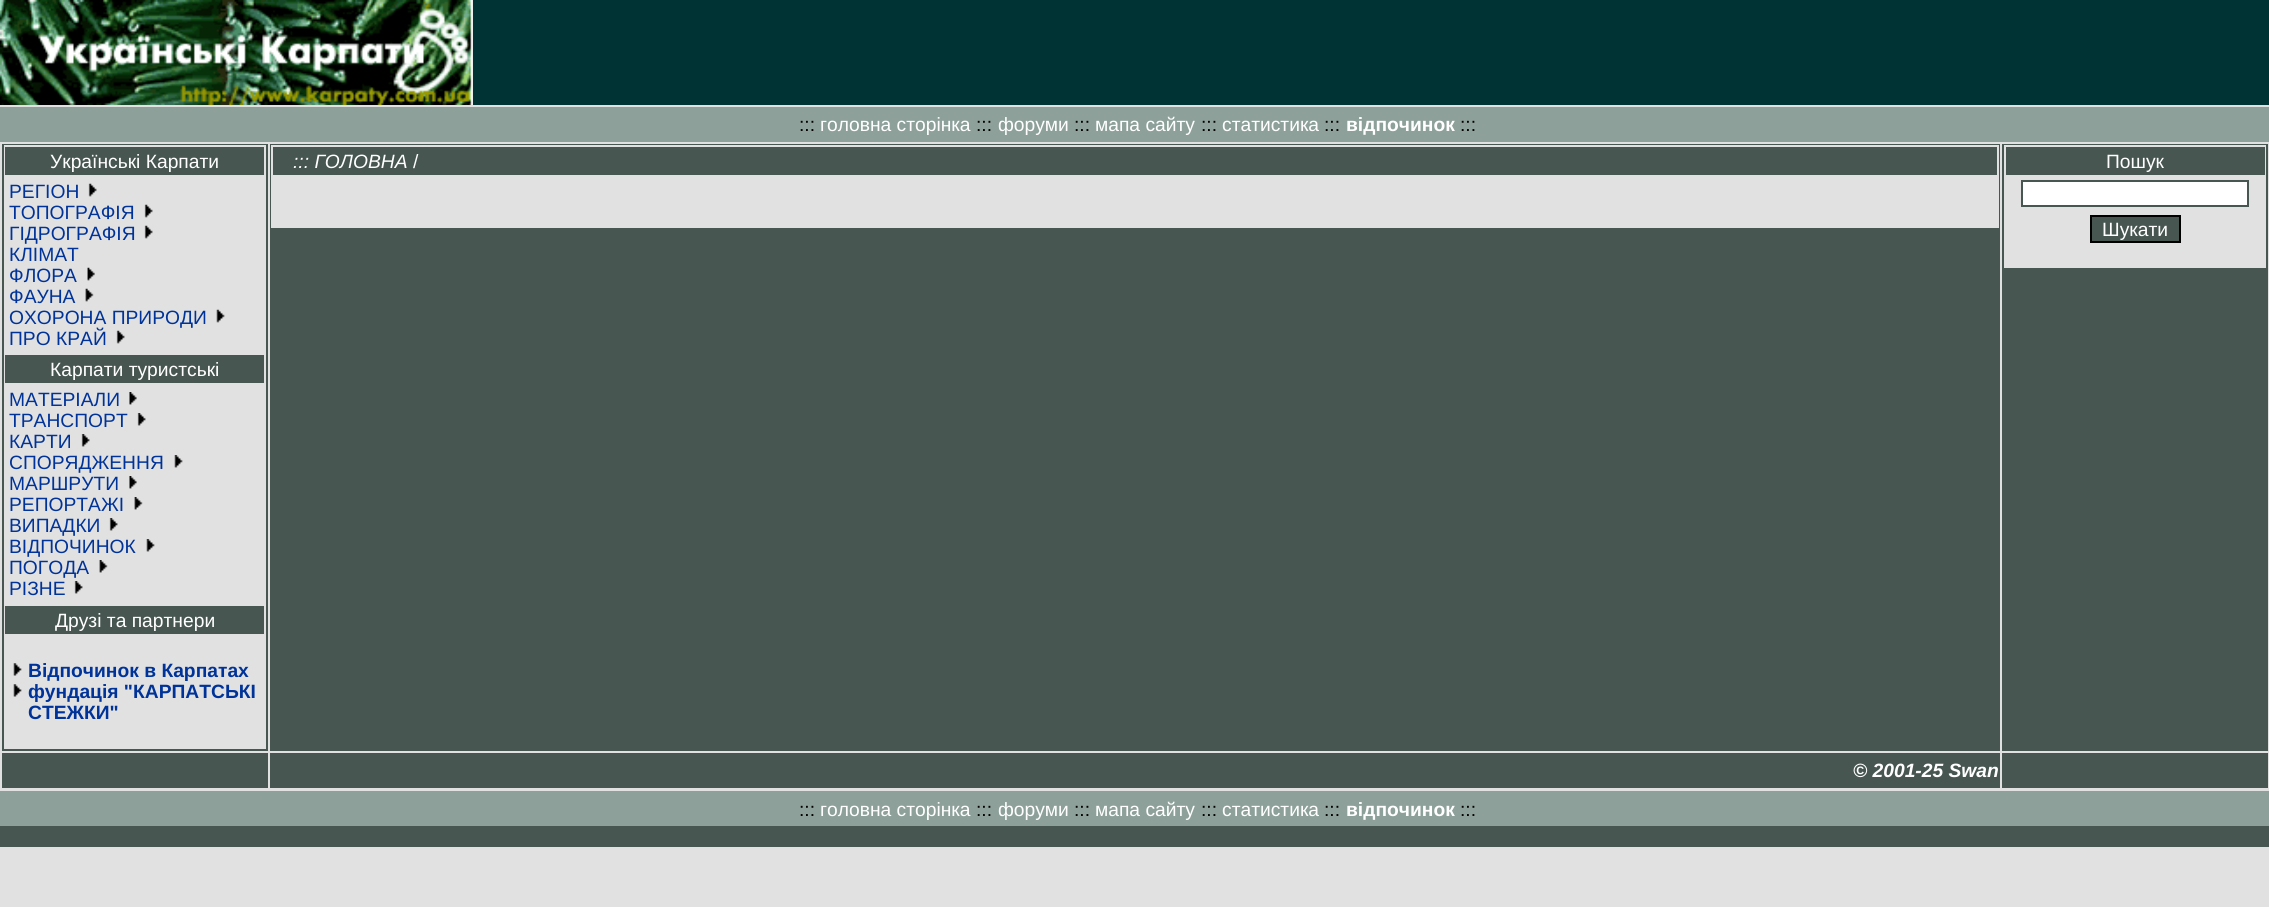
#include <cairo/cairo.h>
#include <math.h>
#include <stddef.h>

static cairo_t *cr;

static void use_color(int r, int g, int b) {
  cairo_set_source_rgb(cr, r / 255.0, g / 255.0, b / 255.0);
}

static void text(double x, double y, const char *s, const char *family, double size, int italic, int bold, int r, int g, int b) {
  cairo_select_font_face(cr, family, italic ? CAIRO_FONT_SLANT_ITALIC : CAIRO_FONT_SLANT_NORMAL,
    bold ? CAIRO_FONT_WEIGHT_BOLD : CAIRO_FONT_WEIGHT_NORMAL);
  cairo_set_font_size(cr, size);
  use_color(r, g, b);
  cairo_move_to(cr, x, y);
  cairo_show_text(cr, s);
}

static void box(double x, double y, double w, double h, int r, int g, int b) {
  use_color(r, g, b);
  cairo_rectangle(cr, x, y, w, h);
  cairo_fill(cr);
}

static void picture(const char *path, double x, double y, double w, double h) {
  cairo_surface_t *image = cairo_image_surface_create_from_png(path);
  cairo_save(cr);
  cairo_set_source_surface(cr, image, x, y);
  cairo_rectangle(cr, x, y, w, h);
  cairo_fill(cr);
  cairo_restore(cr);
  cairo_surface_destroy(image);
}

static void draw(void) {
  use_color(225, 225, 225);
  cairo_paint(cr);
  picture("img_01.png", 0, 0, 473, 105);
  box(473, 0, 1796, 105, 0, 51, 51);
  box(0, 107, 2269, 35, 141, 160, 154);
  box(2, 144, 266, 607, 71, 86, 81);
  box(4, 145, 262, 604, 225, 225, 225);
  box(5, 147, 259, 28, 71, 86, 81);
  picture("img_02.png", 88, 183, 9, 14);
  picture("img_03.png", 144, 204, 9, 14);
  picture("img_03.png", 144, 225, 9, 14);
  picture("img_04.png", 87, 267, 8, 14);
  picture("img_05.png", 85, 288, 9, 14);
  picture("img_06.png", 216, 309, 9, 14);
  picture("img_03.png", 116, 330, 9, 14);
  box(5, 355, 259, 28, 71, 86, 81);
  picture("img_07.png", 129, 392, 8, 13);
  picture("img_08.png", 137, 413, 9, 13);
  picture("img_09.png", 81, 434, 9, 13);
  picture("img_10.png", 174, 455, 9, 13);
  picture("img_07.png", 129, 476, 8, 13);
  picture("img_11.png", 134, 497, 9, 13);
  picture("img_09.png", 109, 518, 9, 13);
  picture("img_12.png", 146, 539, 9, 13);
  picture("img_13.png", 99, 560, 9, 13);
  picture("img_08.png", 74, 581, 9, 13);
  box(5, 606, 259, 28, 71, 86, 81);
  picture("img_14.png", 13, 663, 9, 13);
  picture("img_14.png", 13, 684, 9, 13);
  box(270, 144, 1730, 607, 71, 86, 81);
  box(271, 145, 1728, 83, 225, 225, 225);
  box(273, 147, 1724, 28, 71, 86, 81);
  box(2002, 144, 266, 607, 71, 86, 81);
  box(2004, 145, 262, 123, 225, 225, 225);
  box(2006, 147, 259, 28, 71, 86, 81);
  use_color(255, 255, 255);
  cairo_rectangle(cr, 2022, 181, 226, 25);
  cairo_fill_preserve(cr);
  use_color(71, 86, 81);
  cairo_stroke(cr);
  cairo_rectangle(cr, 2091, 216, 89, 26);
  cairo_fill_preserve(cr);
  use_color(0, 0, 0);
  cairo_stroke(cr);
  box(2, 753, 266, 35, 71, 86, 81);
  box(270, 753, 1730, 35, 71, 86, 81);
  box(2002, 753, 266, 35, 71, 86, 81);
  box(0, 791, 2269, 35, 141, 160, 154);
  box(0, 826, 2269, 21, 71, 86, 81);
  text(799, 131, ":::", "Liberation Sans", 19.25, 0, 0, 0, 0, 0);
  text(820, 131, "головна сторінка", "Liberation Sans", 19.25, 0, 0, 255, 255, 255);
  text(976, 131, ":::", "Liberation Sans", 19.25, 0, 0, 0, 0, 0);
  text(998, 131, "форуми", "Liberation Sans", 19.25, 0, 0, 255, 255, 255);
  text(1074, 131, ":::", "Liberation Sans", 19.25, 0, 0, 0, 0, 0);
  text(1095, 131, "мапа сайту", "Liberation Sans", 19.25, 0, 0, 255, 255, 255);
  text(1201, 131, ":::", "Liberation Sans", 19.25, 0, 0, 0, 0, 0);
  text(1222, 131, "статистика", "Liberation Sans", 19.25, 0, 0, 255, 255, 255);
  text(1324, 131, ":::", "Liberation Sans", 19.25, 0, 0, 0, 0, 0);
  text(1346, 131, "відпочинок", "Liberation Sans", 19.25, 0, 1, 255, 255, 255);
  text(1460, 131, ":::", "Liberation Sans", 19.25, 0, 0, 0, 0, 0);
  text(50, 168, "Українські Карпати", "Liberation Sans", 19.25, 0, 0, 255, 255, 255);
  text(9, 198, "РЕГІОН", "Liberation Sans", 19.25, 0, 0, 0, 51, 153);
  text(9, 219, "ТОПОГРАФІЯ", "Liberation Sans", 19.25, 0, 0, 0, 51, 153);
  text(9, 240, "ГІДРОГРАФІЯ", "Liberation Sans", 19.25, 0, 0, 0, 51, 153);
  text(9, 261, "КЛІМАТ", "Liberation Sans", 19.25, 0, 0, 0, 51, 153);
  text(9, 282, "ФЛОРА", "Liberation Sans", 19.25, 0, 0, 0, 51, 153);
  text(9, 303, "ФАУНА", "Liberation Sans", 19.25, 0, 0, 0, 51, 153);
  text(9, 324, "ОХОРОНА ПРИРОДИ", "Liberation Sans", 19.25, 0, 0, 0, 51, 153);
  text(9, 345, "ПРО КРАЙ", "Liberation Sans", 19.25, 0, 0, 0, 51, 153);
  text(50, 376, "Карпати туристські", "Liberation Sans", 19.25, 0, 0, 255, 255, 255);
  text(9, 406, "МАТЕРІАЛИ", "Liberation Sans", 19.25, 0, 0, 0, 51, 153);
  text(9, 427, "ТРАНСПОРТ", "Liberation Sans", 19.25, 0, 0, 0, 51, 153);
  text(9, 448, "КАРТИ", "Liberation Sans", 19.25, 0, 0, 0, 51, 153);
  text(9, 469, "СПОРЯДЖЕННЯ", "Liberation Sans", 19.25, 0, 0, 0, 51, 153);
  text(9, 490, "МАРШРУТИ", "Liberation Sans", 19.25, 0, 0, 0, 51, 153);
  text(9, 511, "РЕПОРТАЖІ", "Liberation Sans", 19.25, 0, 0, 0, 51, 153);
  text(9, 532, "ВИПАДКИ", "Liberation Sans", 19.25, 0, 0, 0, 51, 153);
  text(9, 553, "ВІДПОЧИНОК", "Liberation Sans", 19.25, 0, 0, 0, 51, 153);
  text(9, 574, "ПОГОДА", "Liberation Sans", 19.25, 0, 0, 0, 51, 153);
  text(9, 595, "РІЗНЕ", "Liberation Sans", 19.25, 0, 0, 0, 51, 153);
  text(55, 627, "Друзі та партнери", "Liberation Sans", 19.25, 0, 0, 255, 255, 255);
  text(28, 677, "Відпочинок в Карпатах", "Liberation Sans", 19.25, 0, 1, 0, 51, 153);
  text(28, 698, "фундація \"КАРПАТСЬКІ", "Liberation Sans", 19.25, 0, 1, 0, 51, 153);
  text(28, 719, "СТЕЖКИ\"", "Liberation Sans", 19.25, 0, 1, 0, 51, 153);
  text(293, 168, "::: ГОЛОВНА", "Liberation Sans", 19.25, 1, 0, 255, 255, 255);
  text(413, 168, "/", "Liberation Sans", 19.25, 0, 0, 255, 255, 255);
  text(2106, 168, "Пошук", "Liberation Sans", 19.25, 0, 0, 255, 255, 255);
  text(2102, 236, "Шукати", "Liberation Sans", 19.25, 0, 0, 255, 255, 255);
  text(1853, 777, "© 2001-25 Swan", "Liberation Sans", 19.25, 1, 1, 255, 255, 255);
  text(799, 816, ":::", "Liberation Sans", 19.25, 0, 0, 0, 0, 0);
  text(820, 816, "головна сторінка", "Liberation Sans", 19.25, 0, 0, 255, 255, 255);
  text(976, 816, ":::", "Liberation Sans", 19.25, 0, 0, 0, 0, 0);
  text(998, 816, "форуми", "Liberation Sans", 19.25, 0, 0, 255, 255, 255);
  text(1074, 816, ":::", "Liberation Sans", 19.25, 0, 0, 0, 0, 0);
  text(1095, 816, "мапа сайту", "Liberation Sans", 19.25, 0, 0, 255, 255, 255);
  text(1201, 816, ":::", "Liberation Sans", 19.25, 0, 0, 0, 0, 0);
  text(1222, 816, "статистика", "Liberation Sans", 19.25, 0, 0, 255, 255, 255);
  text(1324, 816, ":::", "Liberation Sans", 19.25, 0, 0, 0, 0, 0);
  text(1346, 816, "відпочинок", "Liberation Sans", 19.25, 0, 1, 255, 255, 255);
  text(1460, 816, ":::", "Liberation Sans", 19.25, 0, 0, 0, 0, 0);
}

int main(void) {
  cairo_surface_t *surface = cairo_image_surface_create(CAIRO_FORMAT_RGB24, 2269, 907);
  cr = cairo_create(surface);
  cairo_font_options_t *options = cairo_font_options_create();
  cairo_font_options_set_hint_metrics(options, CAIRO_HINT_METRICS_OFF);
  cairo_font_options_set_hint_style(options, CAIRO_HINT_STYLE_NONE);
  cairo_set_font_options(cr, options);
  cairo_set_miter_limit(cr, 4);
  draw();
  cairo_surface_write_to_png(surface, "out.png");
  cairo_font_options_destroy(options);
  cairo_destroy(cr);
  cairo_surface_destroy(surface);
  return 0;
}
